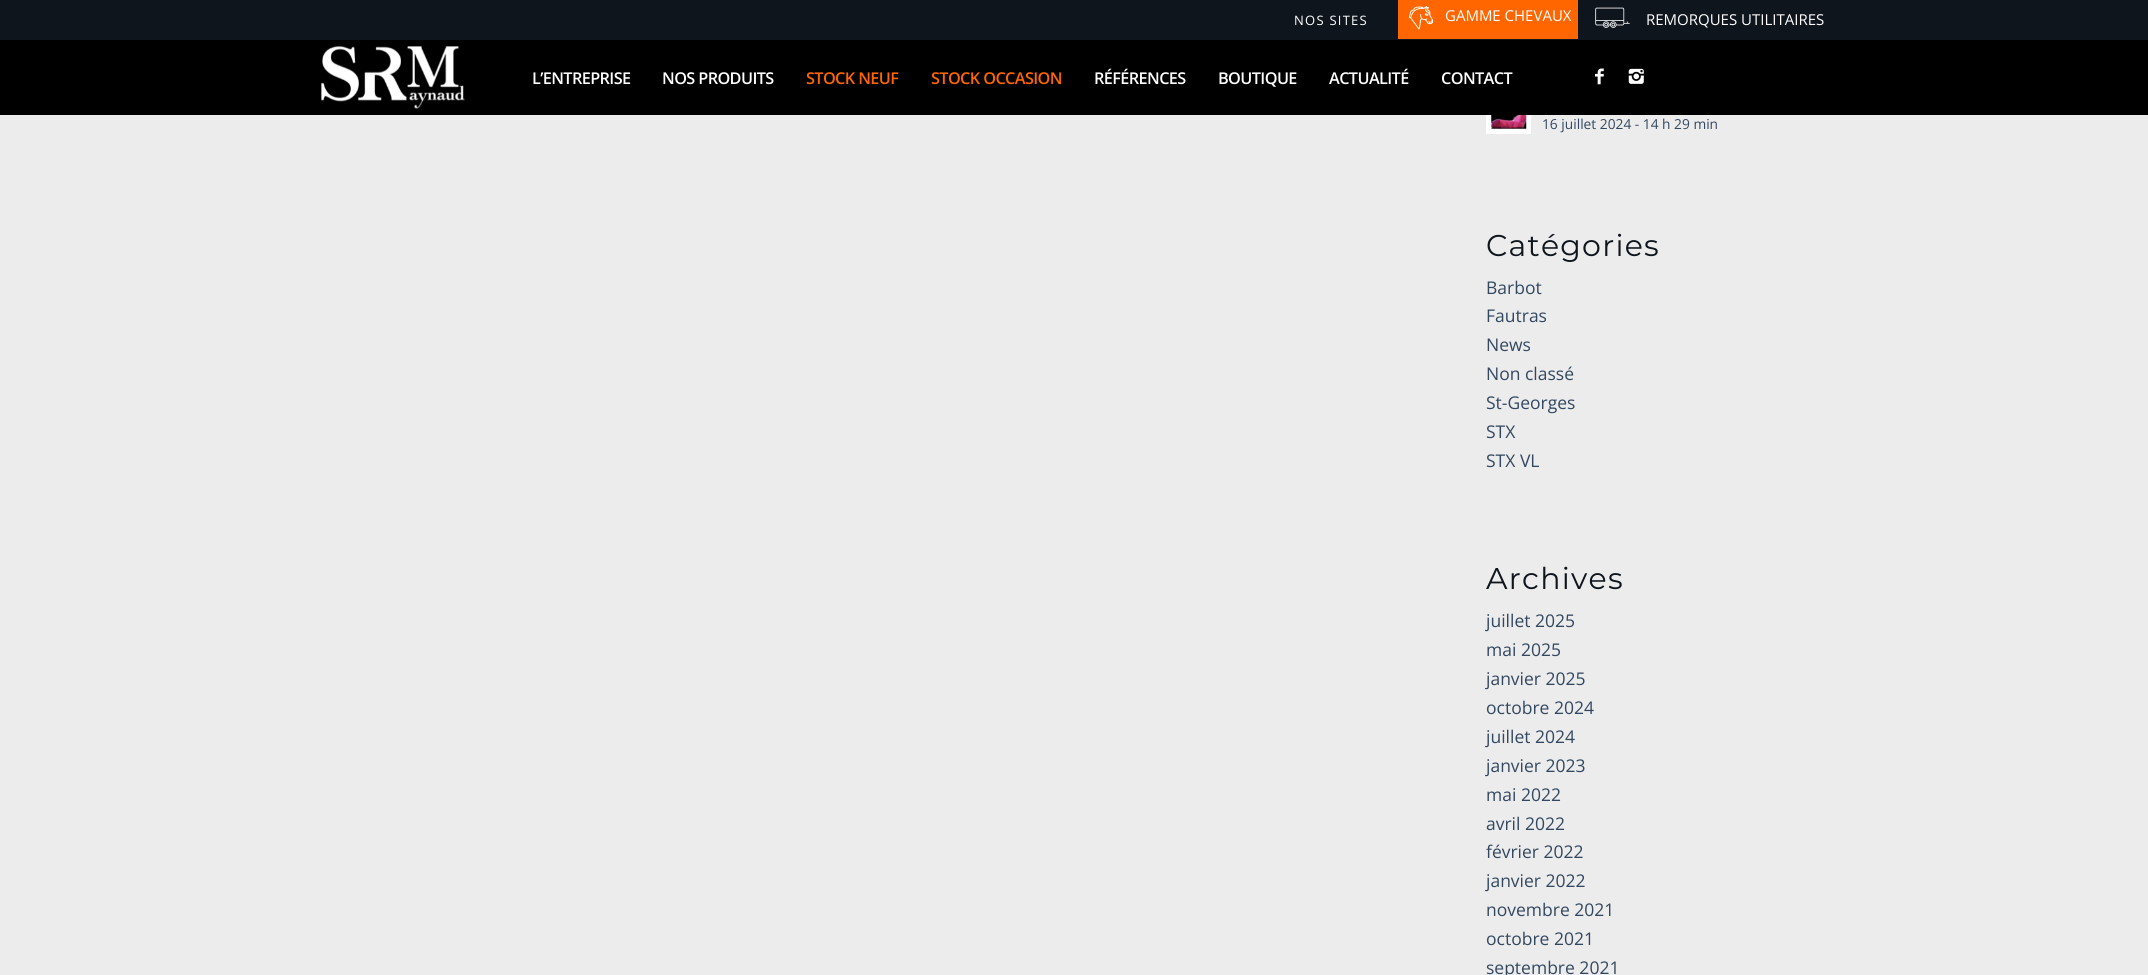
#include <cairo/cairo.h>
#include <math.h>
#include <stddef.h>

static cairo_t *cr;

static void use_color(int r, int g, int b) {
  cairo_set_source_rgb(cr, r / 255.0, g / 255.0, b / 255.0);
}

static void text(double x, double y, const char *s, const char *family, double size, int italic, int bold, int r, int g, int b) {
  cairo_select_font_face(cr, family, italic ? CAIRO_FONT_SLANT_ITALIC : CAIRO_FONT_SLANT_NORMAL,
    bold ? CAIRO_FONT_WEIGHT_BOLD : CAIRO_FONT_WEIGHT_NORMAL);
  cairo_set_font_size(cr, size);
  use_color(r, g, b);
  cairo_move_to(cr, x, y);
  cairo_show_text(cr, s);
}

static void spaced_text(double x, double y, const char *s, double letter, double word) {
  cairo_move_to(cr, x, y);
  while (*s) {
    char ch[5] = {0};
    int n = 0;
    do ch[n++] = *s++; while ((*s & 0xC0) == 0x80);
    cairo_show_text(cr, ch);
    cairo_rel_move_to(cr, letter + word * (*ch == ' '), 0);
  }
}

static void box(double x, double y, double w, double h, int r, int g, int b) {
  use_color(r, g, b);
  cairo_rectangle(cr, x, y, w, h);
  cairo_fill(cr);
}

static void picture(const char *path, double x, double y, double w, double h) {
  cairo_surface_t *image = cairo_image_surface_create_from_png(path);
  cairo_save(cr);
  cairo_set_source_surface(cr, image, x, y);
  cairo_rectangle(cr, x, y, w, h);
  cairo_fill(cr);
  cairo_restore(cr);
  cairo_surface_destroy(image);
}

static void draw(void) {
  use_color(237, 236, 236);
  cairo_paint(cr);
  box(0, 0, 2148, 40, 15, 21, 29);
  box(1398, 0, 180, 39, 255, 102, 0);
  picture("img_01.png", 1408, 6, 26, 24);
  picture("img_02.png", 1595, 7, 35, 21);
  box(0, 40, 2148, 75, 0, 0, 0);
  picture("img_03.png", 321, 46, 144, 63);
  picture("img_04.png", 1595, 68, 9, 17);
  picture("img_05.png", 1628, 68, 16, 16);
  box(1486, 115, 45, 19, 255, 255, 255);
  picture("img_06.png", 1491, 115, 36, 14);
  cairo_select_font_face(cr, "Open Sans", CAIRO_FONT_SLANT_NORMAL, CAIRO_FONT_WEIGHT_NORMAL);
  cairo_set_font_size(cr, 13);
  spaced_text(1294, 25, "NOS SITES", 1.25, 0);
  text(1445, 21, "GAMME CHEVAUX", "Open Sans", 15, 0, 0, 255, 255, 255);
  text(1646, 25, "REMORQUES UTILITAIRES", "Open Sans", 15, 0, 0, 255, 255, 255);
  cairo_select_font_face(cr, "Open Sans SemiBold", CAIRO_FONT_SLANT_NORMAL, CAIRO_FONT_WEIGHT_NORMAL);
  cairo_set_font_size(cr, 16.25);
  spaced_text(532, 84, "L’ENTREPRISE", -0.6, 0);
  spaced_text(662, 84, "NOS PRODUITS", -0.6, 0);
  use_color(255, 102, 0);
  spaced_text(806, 84, "STOCK NEUF", -0.6, 0);
  spaced_text(931, 84, "STOCK OCCASION", -0.6, 0);
  use_color(255, 255, 255);
  spaced_text(1094, 84, "RÉFÉRENCES", -0.6, 0);
  spaced_text(1218, 84, "BOUTIQUE", -0.6, 0);
  spaced_text(1329, 84, "ACTUALITÉ", -0.6, 0);
  spaced_text(1441, 84, "CONTACT", -0.6, 0);
  text(1542, 129, "16 juillet 2024 - 14 h 29 min", "Open Sans", 13.75, 0, 0, 50, 72, 97);
  cairo_select_font_face(cr, "Montserrat Thin", CAIRO_FONT_SLANT_NORMAL, CAIRO_FONT_WEIGHT_NORMAL);
  cairo_set_font_size(cr, 30);
  use_color(15, 21, 29);
  spaced_text(1486, 256, "Catégories", 1.25, 0);
  text(1486, 294, "Barbot", "Open Sans", 17.5, 0, 0, 50, 72, 97);
  text(1486, 322, "Fautras", "Open Sans", 17.5, 0, 0, 50, 72, 97);
  text(1486, 351, "News", "Open Sans", 17.5, 0, 0, 50, 72, 97);
  text(1486, 380, "Non classé", "Open Sans", 17.5, 0, 0, 50, 72, 97);
  text(1486, 409, "St-Georges", "Open Sans", 17.5, 0, 0, 50, 72, 97);
  text(1486, 438, "STX", "Open Sans", 17.5, 0, 0, 50, 72, 97);
  text(1486, 467, "STX VL", "Open Sans", 17.5, 0, 0, 50, 72, 97);
  cairo_select_font_face(cr, "Montserrat Thin", CAIRO_FONT_SLANT_NORMAL, CAIRO_FONT_WEIGHT_NORMAL);
  cairo_set_font_size(cr, 30);
  use_color(15, 21, 29);
  spaced_text(1486, 589, "Archives", 1.25, 0);
  text(1486, 627, "juillet 2025", "Open Sans", 17.5, 0, 0, 50, 72, 97);
  text(1486, 656, "mai 2025", "Open Sans", 17.5, 0, 0, 50, 72, 97);
  text(1486, 685, "janvier 2025", "Open Sans", 17.5, 0, 0, 50, 72, 97);
  text(1486, 714, "octobre 2024", "Open Sans", 17.5, 0, 0, 50, 72, 97);
  text(1486, 743, "juillet 2024", "Open Sans", 17.5, 0, 0, 50, 72, 97);
  text(1486, 772, "janvier 2023", "Open Sans", 17.5, 0, 0, 50, 72, 97);
  text(1486, 801, "mai 2022", "Open Sans", 17.5, 0, 0, 50, 72, 97);
  text(1486, 830, "avril 2022", "Open Sans", 17.5, 0, 0, 50, 72, 97);
  text(1486, 858, "février 2022", "Open Sans", 17.5, 0, 0, 50, 72, 97);
  text(1486, 887, "janvier 2022", "Open Sans", 17.5, 0, 0, 50, 72, 97);
  text(1486, 916, "novembre 2021", "Open Sans", 17.5, 0, 0, 50, 72, 97);
  text(1486, 945, "octobre 2021", "Open Sans", 17.5, 0, 0, 50, 72, 97);
  text(1486, 974, "septembre 2021", "Open Sans", 17.5, 0, 0, 50, 72, 97);
}

int main(void) {
  cairo_surface_t *surface = cairo_image_surface_create(CAIRO_FORMAT_RGB24, 2148, 975);
  cr = cairo_create(surface);
  cairo_font_options_t *options = cairo_font_options_create();
  cairo_font_options_set_hint_metrics(options, CAIRO_HINT_METRICS_OFF);
  cairo_font_options_set_hint_style(options, CAIRO_HINT_STYLE_NONE);
  cairo_set_font_options(cr, options);
  cairo_set_miter_limit(cr, 4);
  draw();
  cairo_surface_write_to_png(surface, "out.png");
  cairo_font_options_destroy(options);
  cairo_destroy(cr);
  cairo_surface_destroy(surface);
  return 0;
}
